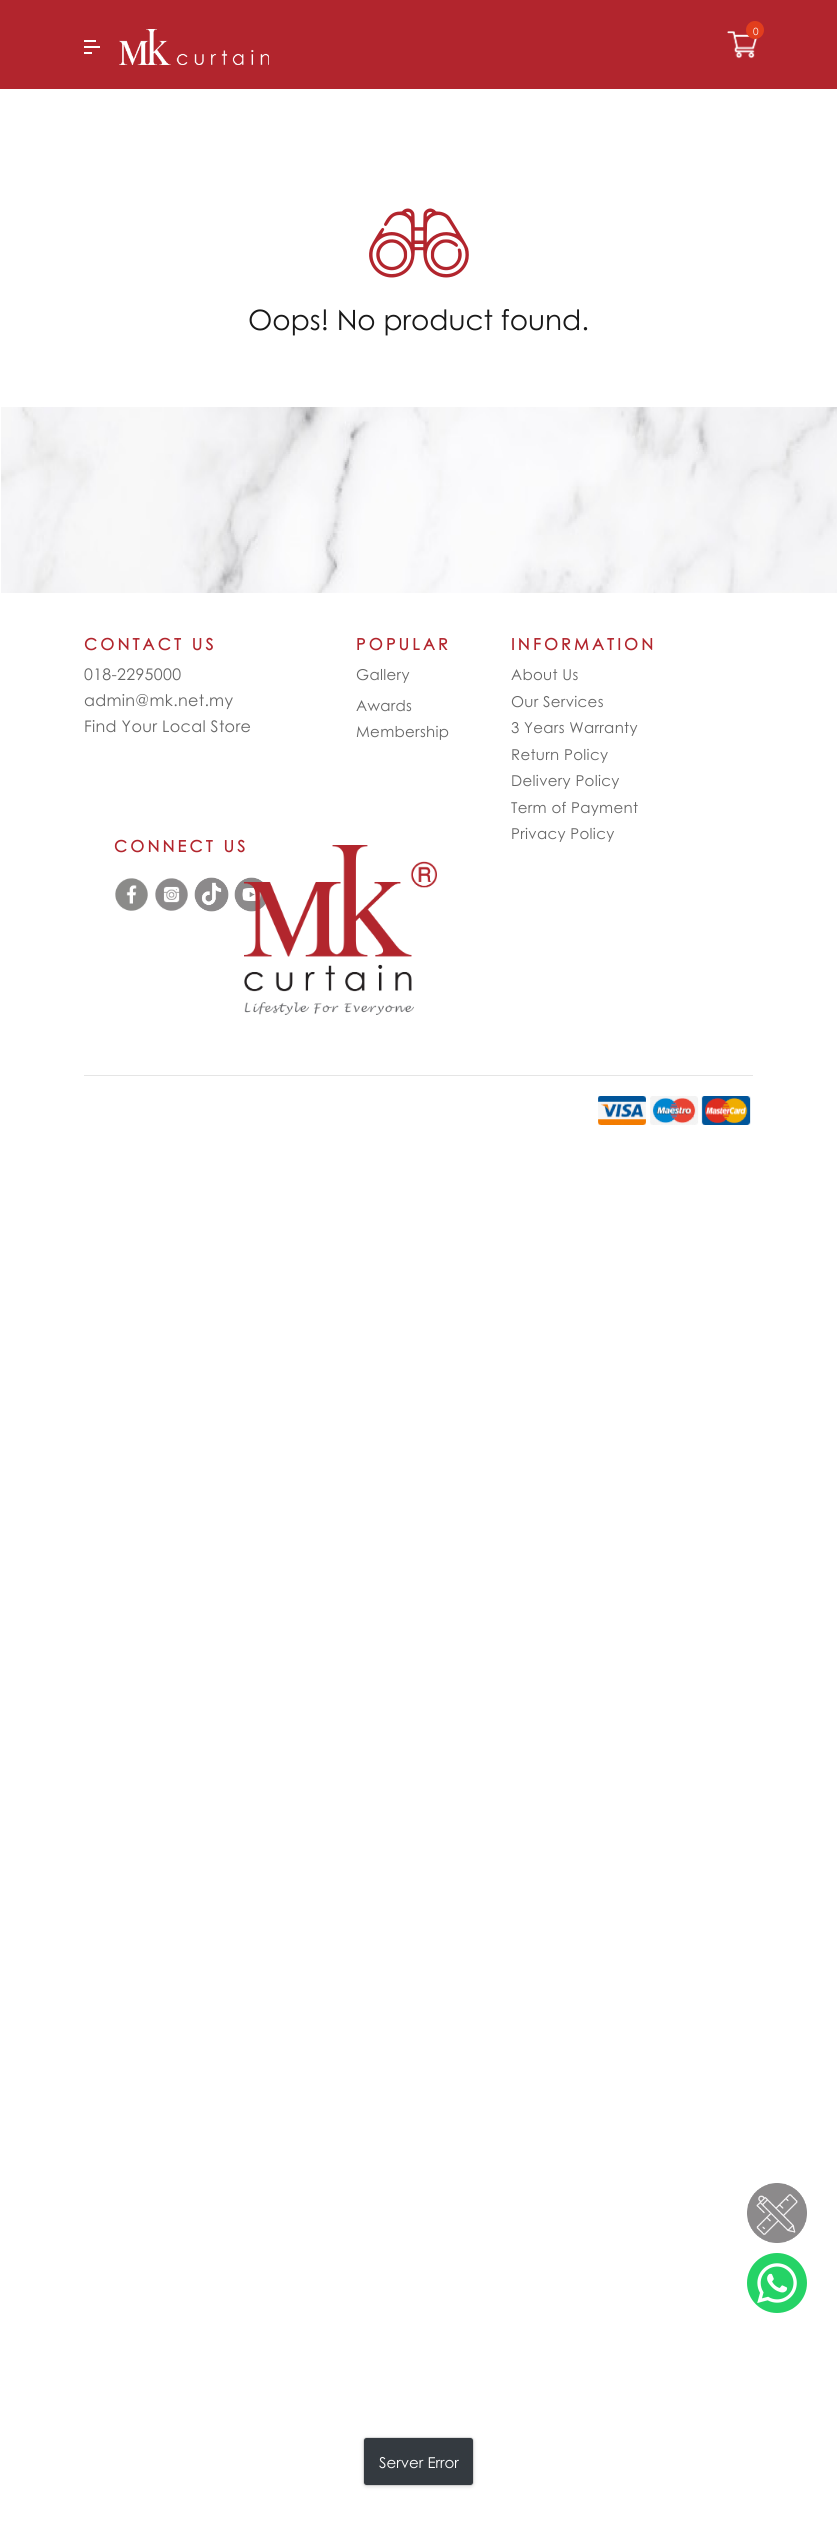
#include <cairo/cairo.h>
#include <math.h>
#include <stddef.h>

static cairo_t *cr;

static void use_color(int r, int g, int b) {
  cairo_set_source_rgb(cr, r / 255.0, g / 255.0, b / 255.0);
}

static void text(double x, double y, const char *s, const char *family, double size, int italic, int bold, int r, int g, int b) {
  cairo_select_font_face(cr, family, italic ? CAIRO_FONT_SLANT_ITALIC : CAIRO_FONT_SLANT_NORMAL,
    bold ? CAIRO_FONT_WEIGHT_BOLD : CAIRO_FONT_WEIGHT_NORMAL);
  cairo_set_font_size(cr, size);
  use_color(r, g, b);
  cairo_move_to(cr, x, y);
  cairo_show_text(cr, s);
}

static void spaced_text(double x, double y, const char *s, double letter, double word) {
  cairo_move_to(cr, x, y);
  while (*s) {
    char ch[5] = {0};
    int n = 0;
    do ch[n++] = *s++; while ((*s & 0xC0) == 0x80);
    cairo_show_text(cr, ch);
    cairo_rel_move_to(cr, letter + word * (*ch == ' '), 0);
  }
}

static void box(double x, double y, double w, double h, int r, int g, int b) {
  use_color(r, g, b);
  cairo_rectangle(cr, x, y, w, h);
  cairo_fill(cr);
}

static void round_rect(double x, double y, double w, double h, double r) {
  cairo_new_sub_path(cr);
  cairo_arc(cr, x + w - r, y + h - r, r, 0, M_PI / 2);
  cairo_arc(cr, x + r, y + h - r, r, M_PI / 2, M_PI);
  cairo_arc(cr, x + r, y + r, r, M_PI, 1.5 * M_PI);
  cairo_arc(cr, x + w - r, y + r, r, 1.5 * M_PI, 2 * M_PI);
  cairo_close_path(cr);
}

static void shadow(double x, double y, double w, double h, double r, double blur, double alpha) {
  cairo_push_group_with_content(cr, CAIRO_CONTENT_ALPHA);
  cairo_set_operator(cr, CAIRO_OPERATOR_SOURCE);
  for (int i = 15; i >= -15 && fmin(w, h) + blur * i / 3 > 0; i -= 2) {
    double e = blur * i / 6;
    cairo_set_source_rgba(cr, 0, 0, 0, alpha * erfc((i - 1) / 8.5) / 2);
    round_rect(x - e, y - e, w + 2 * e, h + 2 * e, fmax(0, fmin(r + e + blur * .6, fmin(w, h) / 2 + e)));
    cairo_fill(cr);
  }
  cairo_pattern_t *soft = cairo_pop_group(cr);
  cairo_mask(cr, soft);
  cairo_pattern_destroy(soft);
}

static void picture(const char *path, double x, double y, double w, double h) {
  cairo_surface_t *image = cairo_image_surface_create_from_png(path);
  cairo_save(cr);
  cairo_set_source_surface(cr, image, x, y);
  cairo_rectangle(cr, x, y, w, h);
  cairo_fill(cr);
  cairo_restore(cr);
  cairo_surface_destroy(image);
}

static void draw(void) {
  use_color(255, 255, 255);
  cairo_paint(cr);
  box(0, 0, 837, 89, 178, 37, 45);
  box(84, 40, 12, 2, 255, 255, 255);
  box(84, 46, 16, 2, 255, 255, 255);
  box(84, 52, 8, 2, 255, 255, 255);
  picture("img_01.png", 119, 29, 150, 36);
  picture("img_02.png", 727, 31, 31, 28);
  use_color(226, 62, 29);
  cairo_arc(cr, 755, 30, 9, 0, 2 * M_PI);
  cairo_fill(cr);
  picture("img_03.png", 369, 208, 100, 70);
  picture("img_04.png", 1, 407, 836, 186);
  picture("img_05.png", 115, 878, 33, 33);
  picture("img_06.png", 155, 878, 33, 33);
  picture("img_07.png", 194, 877, 35, 35);
  picture("img_08.png", 234, 877, 32, 35);
  picture("img_09.png", 244, 845, 193, 170);
  box(84, 1075, 669, 1, 229, 229, 229);
  picture("img_10.png", 598, 1096, 153, 29);
  picture("img_11.png", 747, 2183, 60, 60);
  picture("img_12.png", 747, 2253, 60, 60);
  use_color(0, 0, 0);
  shadow(363, 2438, 111, 49, 4, 2, 0.12);
  use_color(52, 58, 64);
  round_rect(364, 2438, 109, 47, 2.5);
  cairo_fill(cr);
  round_rect(363.5, 2437.5, 110, 48, 3.5);
  cairo_set_source_rgba(cr, 0, 0, 0, 0.1);
  cairo_set_line_width(cr, 1);
  cairo_stroke(cr);
  text(753, 35, "0", "Century Gothic", 10, 0, 0, 255, 255, 255);
  text(248, 330, "Oops! No product found.", "Century Gothic", 28, 0, 0, 25, 25, 25);
  cairo_select_font_face(cr, "Century Gothic", CAIRO_FONT_SLANT_NORMAL, CAIRO_FONT_WEIGHT_BOLD);
  cairo_set_font_size(cr, 16);
  use_color(178, 37, 45);
  spaced_text(84, 650, "CONTACT US", 3.25, 0);
  cairo_select_font_face(cr, "Century Gothic", CAIRO_FONT_SLANT_NORMAL, CAIRO_FONT_WEIGHT_NORMAL);
  use_color(103, 103, 103);
  spaced_text(84, 680, "018-2295000", 0.3, 0);
  spaced_text(84, 706, "admin@mk.net.my", 0.3, 0);
  spaced_text(84, 732, "Find Your Local Store", 0.3, 0);
  cairo_select_font_face(cr, "Century Gothic", CAIRO_FONT_SLANT_NORMAL, CAIRO_FONT_WEIGHT_BOLD);
  use_color(178, 37, 45);
  spaced_text(356, 650, "POPULAR", 3.25, 0);
  cairo_select_font_face(cr, "Century Gothic", CAIRO_FONT_SLANT_NORMAL, CAIRO_FONT_WEIGHT_NORMAL);
  cairo_set_font_size(cr, 15);
  use_color(103, 103, 103);
  spaced_text(356, 680, "Gallery", 0.3, 0);
  spaced_text(356, 711, "Awards", 0.3, 0);
  spaced_text(356, 737, "Membership", 0.3, 0);
  cairo_select_font_face(cr, "Century Gothic", CAIRO_FONT_SLANT_NORMAL, CAIRO_FONT_WEIGHT_BOLD);
  cairo_set_font_size(cr, 16);
  use_color(178, 37, 45);
  spaced_text(511, 650, "INFORMATION", 3.25, 0);
  cairo_select_font_face(cr, "Century Gothic", CAIRO_FONT_SLANT_NORMAL, CAIRO_FONT_WEIGHT_NORMAL);
  cairo_set_font_size(cr, 15);
  use_color(103, 103, 103);
  spaced_text(511, 680, "About Us", 0.3, 0);
  spaced_text(511, 707, "Our Services", 0.3, 0);
  spaced_text(511, 733, "3 Years Warranty", 0.3, 0);
  spaced_text(511, 760, "Return Policy", 0.3, 0);
  spaced_text(511, 786, "Delivery Policy", 0.3, 0);
  spaced_text(511, 813, "Term of Payment", 0.3, 0);
  spaced_text(511, 839, "Privacy Policy", 0.3, 0);
  cairo_select_font_face(cr, "Century Gothic", CAIRO_FONT_SLANT_NORMAL, CAIRO_FONT_WEIGHT_BOLD);
  cairo_set_font_size(cr, 16);
  use_color(178, 37, 45);
  spaced_text(114, 852, "CONNECT US", 3.25, 0);
  text(379, 2468, "Server Error", "Century Gothic", 15, 0, 0, 255, 255, 255);
}

int main(void) {
  cairo_surface_t *surface = cairo_image_surface_create(CAIRO_FORMAT_RGB24, 837, 2523);
  cr = cairo_create(surface);
  cairo_font_options_t *options = cairo_font_options_create();
  cairo_font_options_set_hint_metrics(options, CAIRO_HINT_METRICS_OFF);
  cairo_font_options_set_hint_style(options, CAIRO_HINT_STYLE_NONE);
  cairo_set_font_options(cr, options);
  cairo_set_miter_limit(cr, 4);
  draw();
  cairo_surface_write_to_png(surface, "out.png");
  cairo_font_options_destroy(options);
  cairo_destroy(cr);
  cairo_surface_destroy(surface);
  return 0;
}
